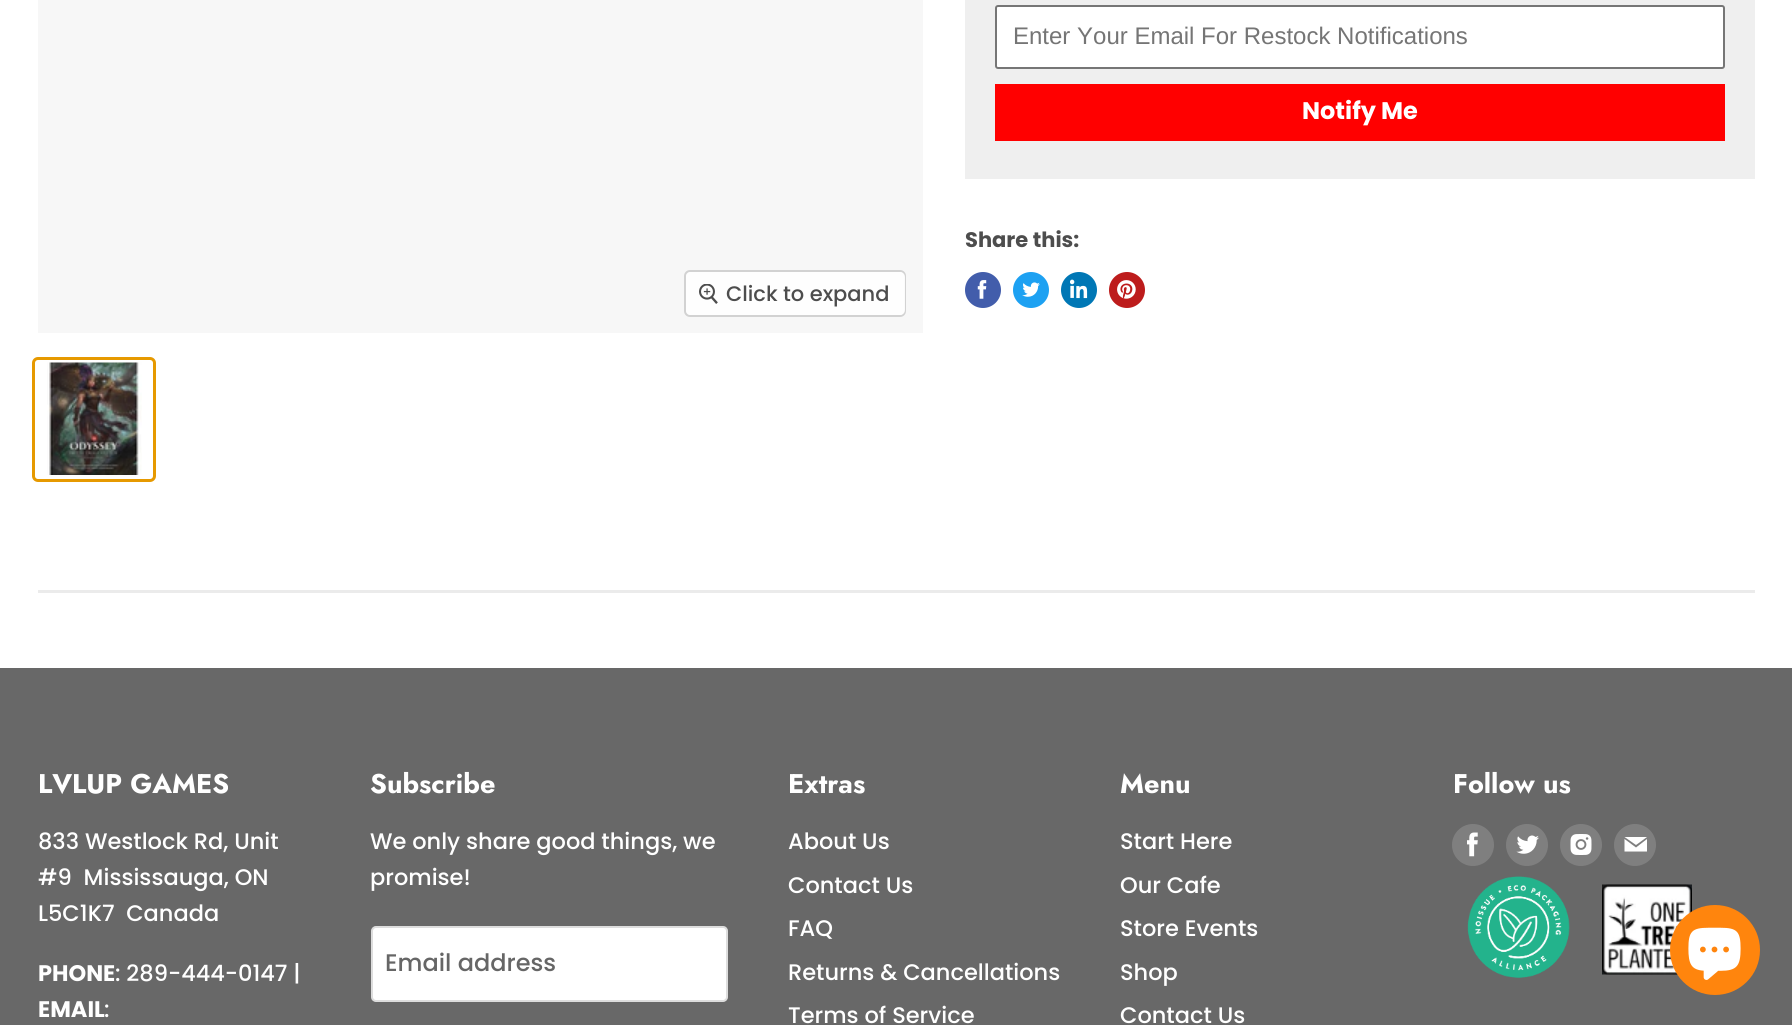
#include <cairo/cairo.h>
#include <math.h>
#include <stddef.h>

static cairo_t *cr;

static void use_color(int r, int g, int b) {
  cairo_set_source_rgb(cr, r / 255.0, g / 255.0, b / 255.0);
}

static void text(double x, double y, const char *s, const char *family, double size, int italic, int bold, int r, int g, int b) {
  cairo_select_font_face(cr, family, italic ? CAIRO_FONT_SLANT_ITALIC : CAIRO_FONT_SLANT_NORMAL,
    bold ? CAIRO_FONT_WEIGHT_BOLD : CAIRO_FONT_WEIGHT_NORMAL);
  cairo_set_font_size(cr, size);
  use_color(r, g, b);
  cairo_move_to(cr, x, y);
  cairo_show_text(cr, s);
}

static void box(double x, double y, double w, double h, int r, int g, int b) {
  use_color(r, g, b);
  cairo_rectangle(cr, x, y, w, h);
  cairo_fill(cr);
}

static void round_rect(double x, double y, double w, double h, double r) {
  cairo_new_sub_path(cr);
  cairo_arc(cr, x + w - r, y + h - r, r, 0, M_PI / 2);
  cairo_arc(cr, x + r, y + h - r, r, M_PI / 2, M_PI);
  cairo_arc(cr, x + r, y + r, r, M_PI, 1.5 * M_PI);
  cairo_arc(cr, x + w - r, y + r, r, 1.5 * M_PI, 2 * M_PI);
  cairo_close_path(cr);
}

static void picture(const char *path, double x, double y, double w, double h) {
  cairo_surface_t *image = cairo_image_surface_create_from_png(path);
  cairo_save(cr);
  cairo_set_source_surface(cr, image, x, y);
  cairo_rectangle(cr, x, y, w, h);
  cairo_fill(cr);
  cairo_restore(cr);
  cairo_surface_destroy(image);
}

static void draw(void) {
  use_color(255, 255, 255);
  cairo_paint(cr);
  box(965, 0, 790, 179, 239, 239, 239);
  use_color(255, 255, 255);
  round_rect(996, 6, 728, 62, 2);
  cairo_fill_preserve(cr);
  use_color(118, 118, 118);
  cairo_stroke(cr);
  box(995, 84, 730, 57, 255, 0, 0);
  use_color(66, 93, 171);
  cairo_arc(cr, 983, 290, 18, 0, 2 * M_PI);
  cairo_fill(cr);
  picture("img_01.png", 977, 280, 10, 19);
  use_color(29, 161, 242);
  cairo_arc(cr, 1031, 290, 18, 0, 2 * M_PI);
  cairo_fill(cr);
  picture("img_02.png", 1022, 282, 18, 15);
  use_color(0, 119, 181);
  cairo_arc(cr, 1079, 290, 18, 0, 2 * M_PI);
  cairo_fill(cr);
  picture("img_03.png", 1070, 279, 18, 20);
  use_color(189, 28, 28);
  cairo_arc(cr, 1127, 290, 18, 0, 2 * M_PI);
  cairo_fill(cr);
  picture("img_04.png", 1117, 280, 19, 19);
  box(38, 0, 885, 333, 247, 247, 247);
  round_rect(685, 271, 220, 45, 5);
  use_color(210, 210, 210);
  cairo_stroke(cr);
  cairo_set_source_rgba(cr, 1, 1, 1, 0.9);
  round_rect(686, 272, 219, 43, 5);
  cairo_fill(cr);
  picture("img_05.png", 699, 284, 19, 20);
  round_rect(33.5, 358.5, 121, 122, 4.5);
  use_color(230, 153, 0);
  cairo_set_line_width(cr, 3);
  cairo_stroke(cr);
  picture("img_06.png", 47, 362, 95, 113);
  cairo_set_source_rgba(cr, 0.498, 0.498, 0.498, 0.16);
  cairo_rectangle(cr, 38, 590, 1717, 3);
  cairo_fill(cr);
  box(0, 668, 1792, 357, 104, 104, 104);
  use_color(255, 255, 255);
  round_rect(372, 927, 355, 74, 4);
  cairo_fill_preserve(cr);
  use_color(221, 221, 221);
  cairo_set_line_width(cr, 2);
  cairo_stroke(cr);
  use_color(127, 127, 127);
  cairo_arc(cr, 1473, 845, 21, 0, 2 * M_PI);
  cairo_fill(cr);
  picture("img_07.png", 1467, 832, 11, 25);
  cairo_arc(cr, 1527, 845, 21, 0, 2 * M_PI);
  cairo_fill(cr);
  picture("img_08.png", 1516, 835, 23, 19);
  cairo_arc(cr, 1581, 845, 21, 0, 2 * M_PI);
  cairo_fill(cr);
  picture("img_09.png", 1570, 834, 22, 21);
  cairo_arc(cr, 1635, 845, 21, 0, 2 * M_PI);
  cairo_fill(cr);
  use_color(255, 255, 255);
  cairo_set_fill_rule(cr, CAIRO_FILL_RULE_EVEN_ODD);
  cairo_new_path(cr);
  cairo_move_to(cr, 1647, 837);
  cairo_line_to(cr, 1624.5, 837);
  cairo_line_to(cr, 1636, 845);
  cairo_close_path(cr);
  cairo_move_to(cr, 1636, 847.5);
  cairo_line_to(cr, 1624.5, 839);
  cairo_line_to(cr, 1624.5, 851.5);
  cairo_line_to(cr, 1647, 851.5);
  cairo_line_to(cr, 1647, 839);
  cairo_close_path(cr);
  cairo_fill(cr);
  picture("img_10.png", 1467, 876, 103, 102);
  picture("img_11.png", 1602, 884, 90, 91);
  use_color(255, 133, 13);
  cairo_arc(cr, 1715, 950, 45, 0, 2 * M_PI);
  cairo_fill(cr);
  picture("img_12.png", 1688, 927, 53, 53);
  text(1013, 44, "Enter Your Email For Restock Notifications", "Liberation Sans", 24, 0, 0, 117, 117, 117);
  text(1302, 119, "Notify Me", "Poppins", 24, 0, 1, 255, 255, 255);
  text(965, 247, "Share this:", "Poppins", 21, 0, 1, 77, 77, 77);
  text(726, 301, "Click to expand", "Poppins Medium", 21, 0, 0, 77, 77, 77);
  text(38, 793, "LVLUP GAMES", "Jost", 27, 0, 1, 255, 255, 255);
  text(38, 849, "833 Westlock Rd, Unit", "Poppins Medium", 22.5, 0, 0, 255, 255, 255);
  text(38, 885, "#9  Mississauga, ON", "Poppins Medium", 22.5, 0, 0, 255, 255, 255);
  text(38, 921, "L5C1K7  Canada", "Poppins Medium", 22.5, 0, 0, 255, 255, 255);
  text(38, 981, "PHONE", "Poppins", 22.5, 0, 1, 255, 255, 255);
  text(115, 981, ": 289-444-0147 |", "Poppins Medium", 22.5, 0, 0, 255, 255, 255);
  text(38, 1017, "EMAIL", "Poppins", 22.5, 0, 1, 255, 255, 255);
  text(104, 1017, ":", "Poppins Medium", 22.5, 0, 0, 255, 255, 255);
  text(370, 793, "Subscribe", "Jost", 27, 0, 1, 255, 255, 255);
  text(370, 849, "We only share good things, we", "Poppins Medium", 22.5, 0, 0, 255, 255, 255);
  text(370, 885, "promise!", "Poppins Medium", 22.5, 0, 0, 255, 255, 255);
  text(385, 971, "Email address", "Poppins Medium", 24, 0, 0, 102, 102, 102);
  text(788, 793, "Extras", "Jost", 27, 0, 1, 255, 255, 255);
  text(788, 849, "About Us", "Poppins Medium", 22.5, 0, 0, 255, 255, 255);
  text(788, 893, "Contact Us", "Poppins Medium", 22.5, 0, 0, 255, 255, 255);
  text(788, 936, "FAQ", "Poppins Medium", 22.5, 0, 0, 255, 255, 255);
  text(788, 980, "Returns & Cancellations", "Poppins Medium", 22.5, 0, 0, 255, 255, 255);
  text(788, 1023, "Terms of Service", "Poppins Medium", 22.5, 0, 0, 255, 255, 255);
  text(1120, 793, "Menu", "Jost", 27, 0, 1, 255, 255, 255);
  text(1120, 849, "Start Here", "Poppins Medium", 22.5, 0, 0, 255, 255, 255);
  text(1120, 893, "Our Cafe", "Poppins Medium", 22.5, 0, 0, 255, 255, 255);
  text(1120, 936, "Store Events", "Poppins Medium", 22.5, 0, 0, 255, 255, 255);
  text(1120, 980, "Shop", "Poppins Medium", 22.5, 0, 0, 255, 255, 255);
  text(1120, 1023, "Contact Us", "Poppins Medium", 22.5, 0, 0, 255, 255, 255);
  text(1453, 793, "Follow us", "Jost", 27, 0, 1, 255, 255, 255);
}

int main(void) {
  cairo_surface_t *surface = cairo_image_surface_create(CAIRO_FORMAT_RGB24, 1792, 1025);
  cr = cairo_create(surface);
  cairo_font_options_t *options = cairo_font_options_create();
  cairo_font_options_set_hint_metrics(options, CAIRO_HINT_METRICS_OFF);
  cairo_font_options_set_hint_style(options, CAIRO_HINT_STYLE_NONE);
  cairo_set_font_options(cr, options);
  cairo_set_miter_limit(cr, 4);
  draw();
  cairo_surface_write_to_png(surface, "out.png");
  cairo_font_options_destroy(options);
  cairo_destroy(cr);
  cairo_surface_destroy(surface);
  return 0;
}
